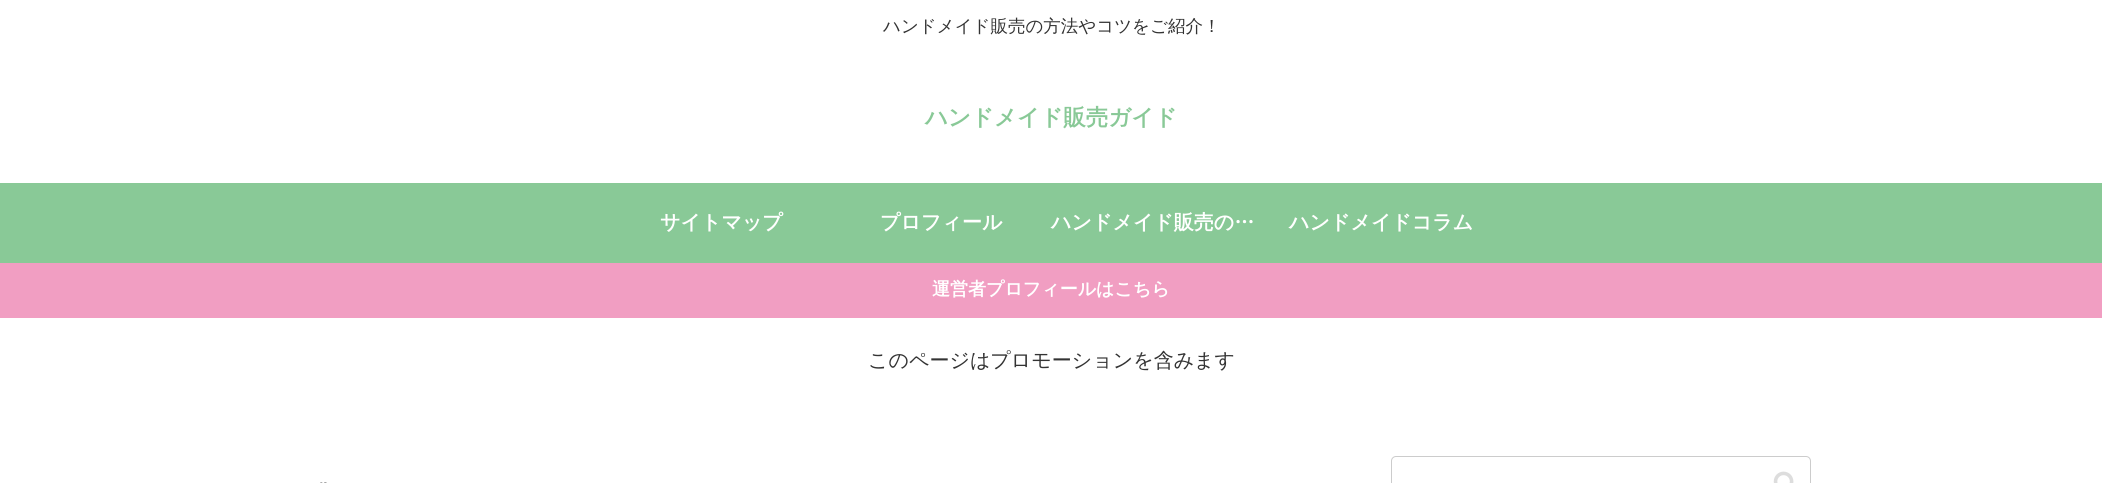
#include <cairo/cairo.h>
#include <math.h>
#include <stddef.h>

static cairo_t *cr;

static void use_color(int r, int g, int b) {
  cairo_set_source_rgb(cr, r / 255.0, g / 255.0, b / 255.0);
}

static void text(double x, double y, const char *s, const char *family, double size, int italic, int bold, int r, int g, int b) {
  cairo_select_font_face(cr, family, italic ? CAIRO_FONT_SLANT_ITALIC : CAIRO_FONT_SLANT_NORMAL,
    bold ? CAIRO_FONT_WEIGHT_BOLD : CAIRO_FONT_WEIGHT_NORMAL);
  cairo_set_font_size(cr, size);
  use_color(r, g, b);
  cairo_move_to(cr, x, y);
  cairo_show_text(cr, s);
}

static void box(double x, double y, double w, double h, int r, int g, int b) {
  use_color(r, g, b);
  cairo_rectangle(cr, x, y, w, h);
  cairo_fill(cr);
}

static void round_rect(double x, double y, double w, double h, double r) {
  cairo_new_sub_path(cr);
  cairo_arc(cr, x + w - r, y + h - r, r, 0, M_PI / 2);
  cairo_arc(cr, x + r, y + h - r, r, M_PI / 2, M_PI);
  cairo_arc(cr, x + r, y + r, r, M_PI, 1.5 * M_PI);
  cairo_arc(cr, x + w - r, y + r, r, 1.5 * M_PI, 2 * M_PI);
  cairo_close_path(cr);
}

static void picture(const char *path, double x, double y, double w, double h) {
  cairo_surface_t *image = cairo_image_surface_create_from_png(path);
  cairo_save(cr);
  cairo_set_source_surface(cr, image, x, y);
  cairo_rectangle(cr, x, y, w, h);
  cairo_fill(cr);
  cairo_restore(cr);
  cairo_surface_destroy(image);
}

static void draw(void) {
  use_color(255, 255, 255);
  cairo_paint(cr);
  box(0, 183, 2102, 80, 137, 201, 151);
  box(0, 263, 2102, 55, 241, 158, 194);
  picture("img_01.png", 320, 482, 7, 1);
  round_rect(1391.5, 456.5, 419, 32, 4.5);
  use_color(204, 204, 204);
  cairo_set_line_width(cr, 1);
  cairo_stroke(cr);
  picture("img_02.png", 1773, 471, 21, 12);
  text(883, 32, "ハンドメイド販売の方法やコツをご紹介！", "WenQuanYi Zen Hei Medium", 17.5, 0, 0, 51, 51, 51);
  text(925, 125, "ハンドメイド販売ガイド", "WenQuanYi Zen Hei", 22.5, 0, 1, 137, 201, 151);
  text(660, 229, "サイトマップ", "WenQuanYi Zen Hei", 20, 0, 1, 255, 255, 255);
  text(880, 229, "プロフィール", "WenQuanYi Zen Hei", 20, 0, 1, 255, 255, 255);
  text(1051, 229, "ハンドメイド販売の…", "WenQuanYi Zen Hei", 20, 0, 1, 255, 255, 255);
  text(1289, 229, "ハンドメイドコラム", "WenQuanYi Zen Hei", 20, 0, 1, 255, 255, 255);
  text(932, 295, "運営者プロフィールはこちら", "WenQuanYi Zen Hei", 18, 0, 1, 255, 255, 255);
  text(868, 367, "このページはプロモーションを含みます", "WenQuanYi Zen Hei Medium", 20, 0, 0, 51, 51, 51);
}

int main(void) {
  cairo_surface_t *surface = cairo_image_surface_create(CAIRO_FORMAT_RGB24, 2102, 483);
  cr = cairo_create(surface);
  cairo_font_options_t *options = cairo_font_options_create();
  cairo_font_options_set_hint_metrics(options, CAIRO_HINT_METRICS_OFF);
  cairo_font_options_set_hint_style(options, CAIRO_HINT_STYLE_NONE);
  cairo_set_font_options(cr, options);
  cairo_set_miter_limit(cr, 4);
  draw();
  cairo_surface_write_to_png(surface, "out.png");
  cairo_font_options_destroy(options);
  cairo_destroy(cr);
  cairo_surface_destroy(surface);
  return 0;
}
